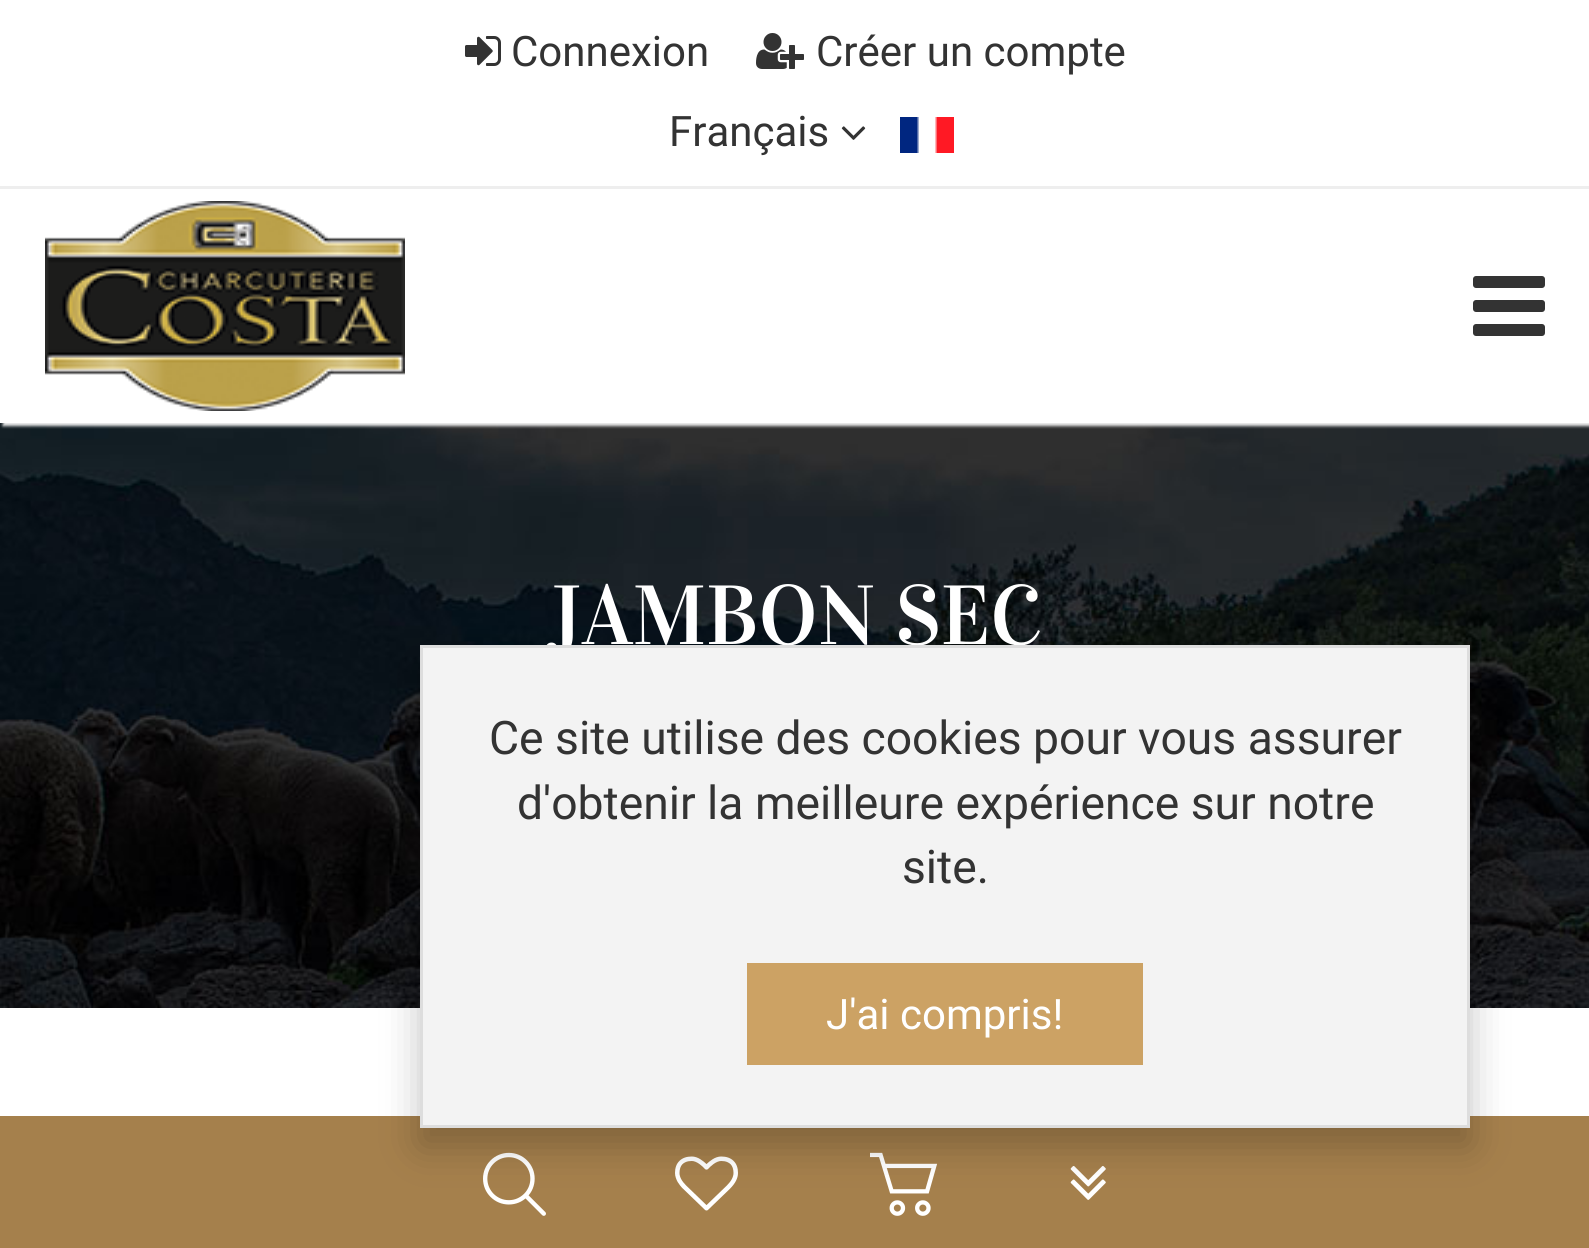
#include <cairo/cairo.h>
#include <math.h>
#include <stddef.h>

static cairo_t *cr;

static void use_color(int r, int g, int b) {
  cairo_set_source_rgb(cr, r / 255.0, g / 255.0, b / 255.0);
}

static void text(double x, double y, const char *s, const char *family, double size, int italic, int bold, int r, int g, int b) {
  cairo_select_font_face(cr, family, italic ? CAIRO_FONT_SLANT_ITALIC : CAIRO_FONT_SLANT_NORMAL,
    bold ? CAIRO_FONT_WEIGHT_BOLD : CAIRO_FONT_WEIGHT_NORMAL);
  cairo_set_font_size(cr, size);
  use_color(r, g, b);
  cairo_move_to(cr, x, y);
  cairo_show_text(cr, s);
}

static void box(double x, double y, double w, double h, int r, int g, int b) {
  use_color(r, g, b);
  cairo_rectangle(cr, x, y, w, h);
  cairo_fill(cr);
}

static void round_rect(double x, double y, double w, double h, double r) {
  cairo_new_sub_path(cr);
  cairo_arc(cr, x + w - r, y + h - r, r, 0, M_PI / 2);
  cairo_arc(cr, x + r, y + h - r, r, M_PI / 2, M_PI);
  cairo_arc(cr, x + r, y + r, r, M_PI, 1.5 * M_PI);
  cairo_arc(cr, x + w - r, y + r, r, 1.5 * M_PI, 2 * M_PI);
  cairo_close_path(cr);
}

static void shadow(double x, double y, double w, double h, double r, double blur, double alpha) {
  cairo_push_group_with_content(cr, CAIRO_CONTENT_ALPHA);
  cairo_set_operator(cr, CAIRO_OPERATOR_SOURCE);
  for (int i = 15; i >= -15 && fmin(w, h) + blur * i / 3 > 0; i -= 2) {
    double e = blur * i / 6;
    cairo_set_source_rgba(cr, 0, 0, 0, alpha * erfc((i - 1) / 8.5) / 2);
    round_rect(x - e, y - e, w + 2 * e, h + 2 * e, fmax(0, fmin(r + e + blur * .6, fmin(w, h) / 2 + e)));
    cairo_fill(cr);
  }
  cairo_pattern_t *soft = cairo_pop_group(cr);
  cairo_mask(cr, soft);
  cairo_pattern_destroy(soft);
}

static void picture(const char *path, double x, double y, double w, double h) {
  cairo_surface_t *image = cairo_image_surface_create_from_png(path);
  cairo_save(cr);
  cairo_set_source_surface(cr, image, x, y);
  cairo_rectangle(cr, x, y, w, h);
  cairo_fill(cr);
  cairo_restore(cr);
  cairo_surface_destroy(image);
}

static void draw(void) {
  use_color(255, 255, 255);
  cairo_paint(cr);
  box(0, 186, 1589, 3, 238, 238, 238);
  picture("img_01.png", 465, 36, 36, 30);
  picture("img_02.png", 756, 33, 48, 36);
  picture("img_03.png", 841, 126, 25, 14);
  picture("img_04.png", 900, 117, 54, 36);
  picture("img_07.png", 0, 423, 1589, 585);
  cairo_save(cr);
  cairo_rectangle(cr, 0, 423, 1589, 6);
  cairo_clip(cr);
  use_color(239, 239, 239);
  shadow(3, 192, 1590, 234, 0, 1.5, 1);
  cairo_restore(cr);
  picture("img_05.png", 45, 201, 360, 210);
  picture("img_06.png", 1473, 276, 72, 60);
  box(0, 1116, 1589, 132, 165, 128, 76);
  picture("img_08.png", 483, 1152, 63, 64);
  picture("img_09.png", 675, 1156, 63, 55);
  picture("img_10.png", 870, 1152, 67, 64);
  picture("img_11.png", 1070, 1166, 36, 34);
  use_color(0, 0, 0);
  shadow(420, 663, 1050, 483, 0, 19.5, 0.23);
  text(511, 66, "Connexion", "Roboto", 42, 0, 0, 51, 51, 51);
  text(816, 66, "Créer un compte", "Roboto", 42, 0, 0, 51, 51, 51);
  text(669, 146, "Français", "Roboto", 42, 0, 0, 51, 51, 51);
  text(548, 644, "JAMBON SEC", "Vidaloka", 84, 0, 0, 255, 255, 255);
  use_color(243, 243, 243);
  cairo_rectangle(cr, 421.5, 646.5, 1047, 480);
  cairo_fill_preserve(cr);
  use_color(221, 221, 221);
  cairo_set_line_width(cr, 3);
  cairo_stroke(cr);
  text(489, 754, "Ce site utilise des cookies pour vous assurer", "Roboto", 46.25, 0, 0, 51, 51, 51);
  text(517, 819, "d'obtenir la meilleure expérience sur notre", "Roboto", 46.25, 0, 0, 51, 51, 51);
  text(902, 883, "site.", "Roboto", 46.25, 0, 0, 51, 51, 51);
  box(747, 963, 396, 102, 204, 162, 100);
  text(826, 1029, "J'ai compris!", "Roboto", 42, 0, 0, 255, 255, 255);
}

int main(void) {
  cairo_surface_t *surface = cairo_image_surface_create(CAIRO_FORMAT_RGB24, 1589, 1248);
  cr = cairo_create(surface);
  cairo_font_options_t *options = cairo_font_options_create();
  cairo_font_options_set_hint_metrics(options, CAIRO_HINT_METRICS_OFF);
  cairo_font_options_set_hint_style(options, CAIRO_HINT_STYLE_NONE);
  cairo_set_font_options(cr, options);
  cairo_set_miter_limit(cr, 4);
  draw();
  cairo_surface_write_to_png(surface, "out.png");
  cairo_font_options_destroy(options);
  cairo_destroy(cr);
  cairo_surface_destroy(surface);
  return 0;
}
